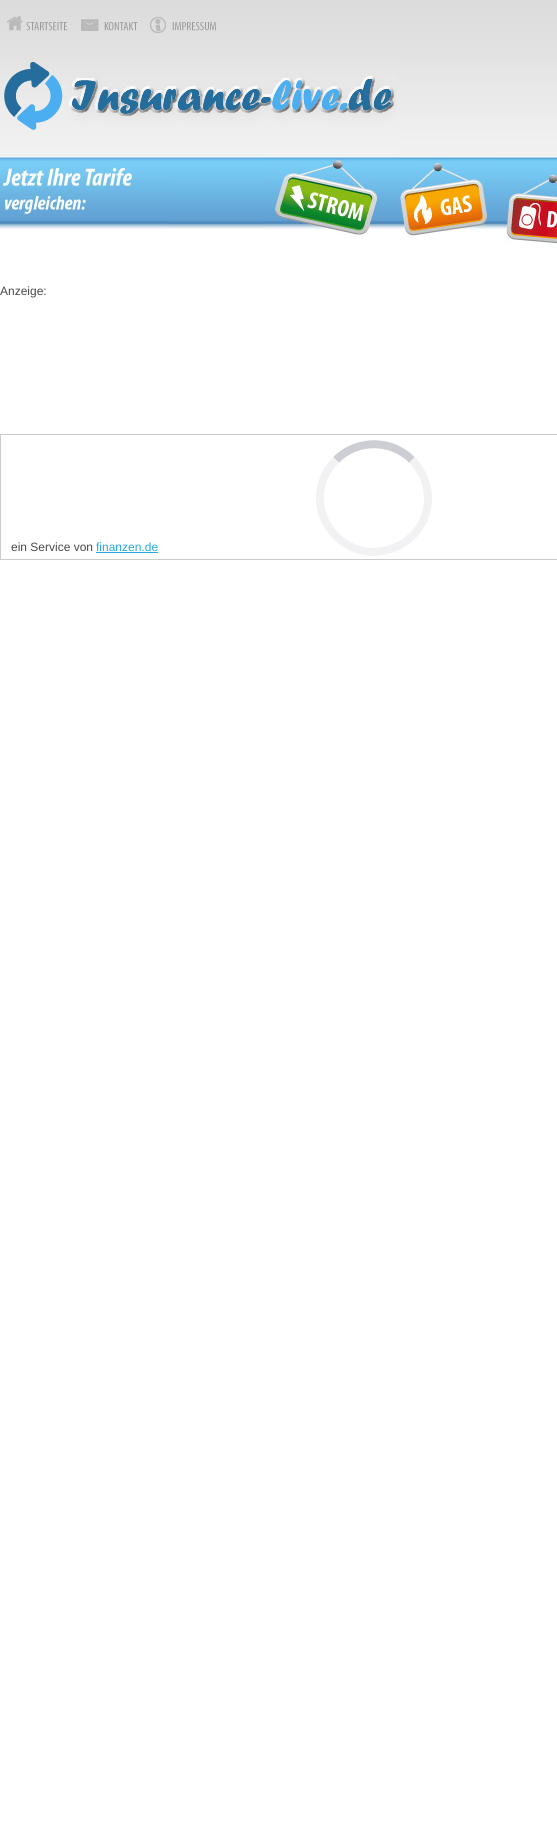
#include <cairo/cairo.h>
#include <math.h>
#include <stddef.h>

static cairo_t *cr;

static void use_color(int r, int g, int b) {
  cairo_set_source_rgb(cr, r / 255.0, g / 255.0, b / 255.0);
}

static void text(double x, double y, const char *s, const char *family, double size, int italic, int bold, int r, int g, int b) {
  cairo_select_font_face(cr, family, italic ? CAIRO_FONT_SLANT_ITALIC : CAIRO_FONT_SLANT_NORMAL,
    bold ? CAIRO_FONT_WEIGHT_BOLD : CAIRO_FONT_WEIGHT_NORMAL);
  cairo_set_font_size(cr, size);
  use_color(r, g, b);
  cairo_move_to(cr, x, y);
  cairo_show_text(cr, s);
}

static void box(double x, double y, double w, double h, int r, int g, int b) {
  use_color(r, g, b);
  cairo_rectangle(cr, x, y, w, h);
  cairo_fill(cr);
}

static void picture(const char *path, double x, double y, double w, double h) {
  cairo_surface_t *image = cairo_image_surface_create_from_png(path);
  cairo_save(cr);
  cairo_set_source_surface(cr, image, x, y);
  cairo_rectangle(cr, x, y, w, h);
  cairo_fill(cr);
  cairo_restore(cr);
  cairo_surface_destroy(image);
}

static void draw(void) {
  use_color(255, 255, 255);
  cairo_paint(cr);
  picture("img_01.png", 0, 0, 557, 229);
  picture("img_02.png", 7, 16, 61, 16);
  picture("img_03.png", 80, 17, 58, 14);
  picture("img_04.png", 150, 16, 67, 17);
  picture("img_05.png", 0, 62, 397, 92);
  picture("img_06.png", 0, 162, 169, 66);
  picture("img_07.png", 267, 157, 121, 80);
  picture("img_08.png", 390, 157, 112, 80);
  picture("img_09.png", 504, 162, 53, 82);
  cairo_rectangle(cr, 0.5, 434.5, 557, 125);
  use_color(204, 204, 204);
  cairo_set_line_width(cr, 1);
  cairo_stroke(cr);
  box(96, 552, 62, 1, 38, 169, 224);
  cairo_new_path(cr);
  cairo_move_to(cr, 336, 460);
  cairo_curve_to(cr, 356.5, 439, 391.5, 439, 412, 460);
  use_color(204, 206, 212);
  cairo_set_line_width(cr, 8);
  cairo_stroke(cr);
  cairo_new_path(cr);
  cairo_move_to(cr, 412, 460);
  cairo_curve_to(cr, 422, 470, 428, 484, 428, 498);
  cairo_curve_to(cr, 428, 545.5, 369.5, 570, 336, 536);
  cairo_curve_to(cr, 328.5, 528.5, 323, 519, 321, 508.5);
  cairo_curve_to(cr, 317.5, 491, 323, 472.5, 336, 460);
  use_color(242, 242, 244);
  cairo_stroke(cr);
  text(0, 295, "Anzeige:", "Liberation Sans", 12, 0, 0, 73, 73, 73);
  text(11, 551, "ein Service von", "Liberation Sans", 12, 0, 0, 73, 73, 73);
  text(96, 551, "finanzen.de", "Liberation Sans", 12, 0, 0, 38, 169, 224);
}

int main(void) {
  cairo_surface_t *surface = cairo_image_surface_create(CAIRO_FORMAT_RGB24, 557, 1845);
  cr = cairo_create(surface);
  cairo_font_options_t *options = cairo_font_options_create();
  cairo_font_options_set_hint_metrics(options, CAIRO_HINT_METRICS_OFF);
  cairo_font_options_set_hint_style(options, CAIRO_HINT_STYLE_NONE);
  cairo_set_font_options(cr, options);
  cairo_set_miter_limit(cr, 4);
  draw();
  cairo_surface_write_to_png(surface, "out.png");
  cairo_font_options_destroy(options);
  cairo_destroy(cr);
  cairo_surface_destroy(surface);
  return 0;
}
